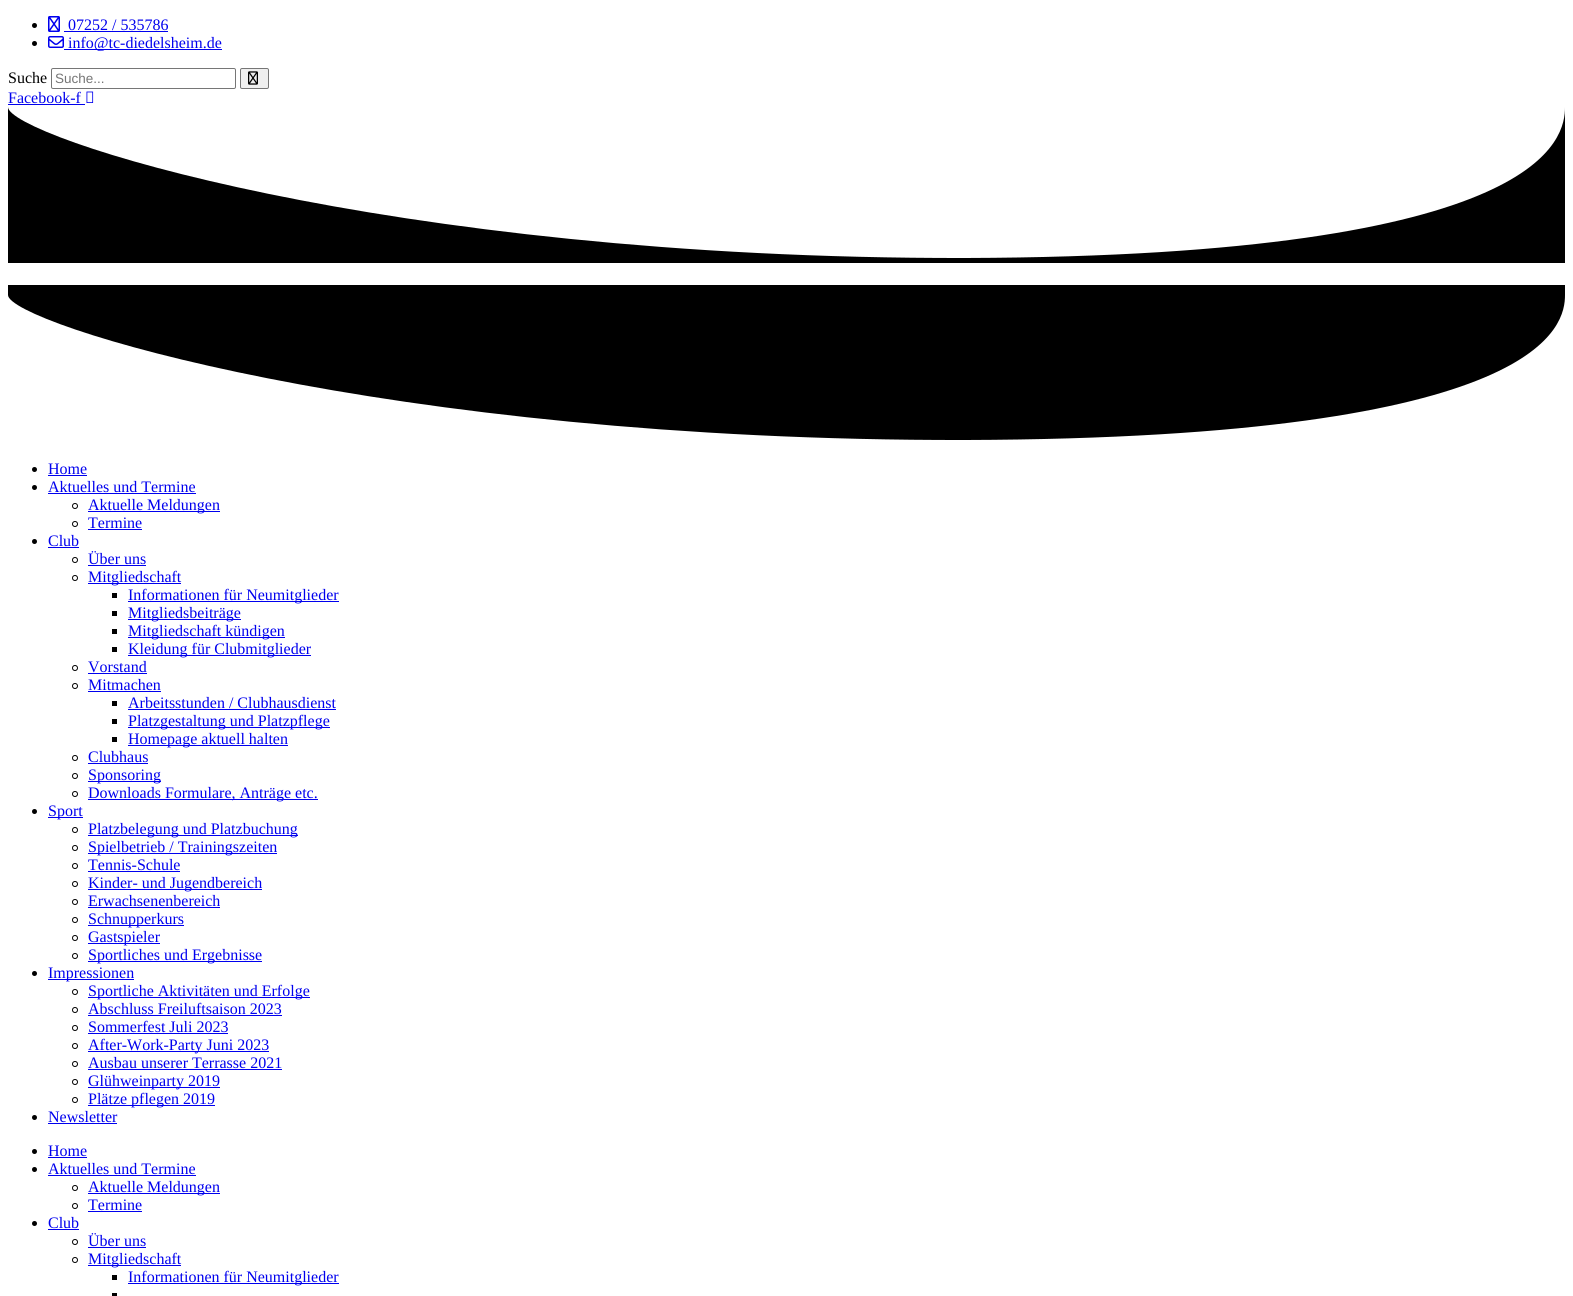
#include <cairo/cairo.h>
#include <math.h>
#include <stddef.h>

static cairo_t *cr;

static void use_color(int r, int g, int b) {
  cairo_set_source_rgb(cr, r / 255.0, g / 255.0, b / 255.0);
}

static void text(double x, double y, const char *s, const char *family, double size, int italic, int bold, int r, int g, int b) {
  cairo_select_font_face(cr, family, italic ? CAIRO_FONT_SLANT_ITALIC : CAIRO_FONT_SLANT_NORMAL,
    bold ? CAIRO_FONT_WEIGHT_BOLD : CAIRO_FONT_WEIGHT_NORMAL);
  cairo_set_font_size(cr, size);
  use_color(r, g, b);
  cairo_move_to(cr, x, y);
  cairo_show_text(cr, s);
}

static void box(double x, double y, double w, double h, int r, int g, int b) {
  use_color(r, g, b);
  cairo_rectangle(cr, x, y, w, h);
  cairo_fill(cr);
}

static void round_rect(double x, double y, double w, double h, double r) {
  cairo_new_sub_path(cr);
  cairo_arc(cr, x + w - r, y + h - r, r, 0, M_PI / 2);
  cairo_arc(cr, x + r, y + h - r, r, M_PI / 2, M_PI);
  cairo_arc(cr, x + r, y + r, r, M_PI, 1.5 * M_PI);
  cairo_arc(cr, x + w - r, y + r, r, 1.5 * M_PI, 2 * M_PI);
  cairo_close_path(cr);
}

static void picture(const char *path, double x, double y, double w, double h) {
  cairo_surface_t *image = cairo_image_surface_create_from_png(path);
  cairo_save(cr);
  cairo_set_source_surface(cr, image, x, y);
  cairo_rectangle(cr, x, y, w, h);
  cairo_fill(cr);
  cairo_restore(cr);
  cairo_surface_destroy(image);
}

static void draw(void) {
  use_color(255, 255, 255);
  cairo_paint(cr);
  use_color(0, 0, 0);
  cairo_arc(cr, 34.5, 25.5, 2.5, 0, 2 * M_PI);
  cairo_fill(cr);
  picture("img_01.png", 48, 16, 12, 16);
  box(64, 31, 104, 1, 0, 0, 238);
  use_color(0, 0, 0);
  cairo_arc(cr, 34.5, 43.5, 2.5, 0, 2 * M_PI);
  cairo_fill(cr);
  picture("img_02.png", 48, 36, 16, 12);
  box(64, 49, 158, 1, 0, 0, 238);
  round_rect(51.5, 68.5, 184, 20, 1.5);
  use_color(118, 118, 118);
  cairo_set_line_width(cr, 1);
  cairo_stroke(cr);
  use_color(239, 239, 239);
  round_rect(240.5, 68.5, 28, 20, 1.5);
  cairo_fill_preserve(cr);
  use_color(118, 118, 118);
  cairo_stroke(cr);
  picture("img_03.png", 248, 71, 10, 14);
  box(8, 104, 77, 1, 0, 0, 238);
  picture("img_04.png", 86, 91, 8, 12);
  use_color(0, 0, 0);
  cairo_new_path(cr);
  cairo_move_to(cr, 966, 258);
  cairo_curve_to(cr, 382, 259, 8, 136, 8, 107);
  cairo_line_to(cr, 8, 263);
  cairo_line_to(cr, 1565, 263);
  cairo_line_to(cr, 1565, 107);
  cairo_curve_to(cr, 1565, 137, 1549, 256, 966, 258);
  cairo_close_path(cr);
  cairo_fill(cr);
  cairo_new_path(cr);
  cairo_move_to(cr, 8, 285);
  cairo_line_to(cr, 8, 295);
  cairo_curve_to(cr, 8, 323, 382, 441, 966, 440);
  cairo_curve_to(cr, 1549, 438, 1565, 324, 1565, 295);
  cairo_line_to(cr, 1565, 285);
  cairo_close_path(cr);
  cairo_fill(cr);
  cairo_arc(cr, 34.5, 469.5, 2.5, 0, 2 * M_PI);
  cairo_fill(cr);
  box(48, 475, 39, 1, 0, 0, 238);
  use_color(0, 0, 0);
  cairo_arc(cr, 34.5, 487.5, 2.5, 0, 2 * M_PI);
  cairo_fill(cr);
  box(48, 493, 148, 1, 0, 0, 238);
  cairo_arc(cr, 75, 506, 2.5, 0, 2 * M_PI);
  use_color(0, 0, 0);
  cairo_stroke(cr);
  box(88, 511, 132, 1, 0, 0, 238);
  cairo_arc(cr, 75, 524, 2.5, 0, 2 * M_PI);
  use_color(0, 0, 0);
  cairo_stroke(cr);
  box(88, 529, 54, 1, 0, 0, 238);
  use_color(0, 0, 0);
  cairo_arc(cr, 34.5, 541.5, 2.5, 0, 2 * M_PI);
  cairo_fill(cr);
  box(48, 547, 31, 1, 0, 0, 238);
  cairo_arc(cr, 75, 560, 2.5, 0, 2 * M_PI);
  use_color(0, 0, 0);
  cairo_stroke(cr);
  box(88, 565, 58, 1, 0, 0, 238);
  cairo_arc(cr, 75, 578, 2.5, 0, 2 * M_PI);
  use_color(0, 0, 0);
  cairo_stroke(cr);
  box(88, 583, 93, 1, 0, 0, 238);
  box(112, 593, 5, 5, 0, 0, 0);
  box(128, 601, 211, 1, 0, 0, 238);
  box(112, 611, 5, 5, 0, 0, 0);
  box(128, 619, 113, 1, 0, 0, 238);
  box(112, 629, 5, 5, 0, 0, 0);
  box(128, 637, 157, 1, 0, 0, 238);
  box(112, 647, 5, 5, 0, 0, 0);
  box(128, 655, 183, 1, 0, 0, 238);
  cairo_arc(cr, 75, 668, 2.5, 0, 2 * M_PI);
  use_color(0, 0, 0);
  cairo_stroke(cr);
  box(88, 673, 59, 1, 0, 0, 238);
  cairo_arc(cr, 75, 686, 2.5, 0, 2 * M_PI);
  use_color(0, 0, 0);
  cairo_stroke(cr);
  box(88, 691, 73, 1, 0, 0, 238);
  box(112, 701, 5, 5, 0, 0, 0);
  box(128, 709, 208, 1, 0, 0, 238);
  box(112, 719, 5, 5, 0, 0, 0);
  box(128, 727, 202, 1, 0, 0, 238);
  box(112, 737, 5, 5, 0, 0, 0);
  box(128, 745, 160, 1, 0, 0, 238);
  cairo_arc(cr, 75, 758, 2.5, 0, 2 * M_PI);
  use_color(0, 0, 0);
  cairo_stroke(cr);
  box(88, 763, 60, 1, 0, 0, 238);
  cairo_arc(cr, 75, 776, 2.5, 0, 2 * M_PI);
  use_color(0, 0, 0);
  cairo_stroke(cr);
  box(88, 781, 73, 1, 0, 0, 238);
  cairo_arc(cr, 75, 794, 2.5, 0, 2 * M_PI);
  use_color(0, 0, 0);
  cairo_stroke(cr);
  box(88, 799, 230, 1, 0, 0, 238);
  use_color(0, 0, 0);
  cairo_arc(cr, 34.5, 811.5, 2.5, 0, 2 * M_PI);
  cairo_fill(cr);
  box(48, 817, 35, 1, 0, 0, 238);
  cairo_arc(cr, 75, 830, 2.5, 0, 2 * M_PI);
  use_color(0, 0, 0);
  cairo_stroke(cr);
  box(88, 835, 210, 1, 0, 0, 238);
  cairo_arc(cr, 75, 848, 2.5, 0, 2 * M_PI);
  use_color(0, 0, 0);
  cairo_stroke(cr);
  box(88, 853, 189, 1, 0, 0, 238);
  cairo_arc(cr, 75, 866, 2.5, 0, 2 * M_PI);
  use_color(0, 0, 0);
  cairo_stroke(cr);
  box(88, 871, 92, 1, 0, 0, 238);
  cairo_arc(cr, 75, 884, 2.5, 0, 2 * M_PI);
  use_color(0, 0, 0);
  cairo_stroke(cr);
  box(88, 889, 174, 1, 0, 0, 238);
  cairo_arc(cr, 75, 902, 2.5, 0, 2 * M_PI);
  use_color(0, 0, 0);
  cairo_stroke(cr);
  box(88, 907, 132, 1, 0, 0, 238);
  cairo_arc(cr, 75, 920, 2.5, 0, 2 * M_PI);
  use_color(0, 0, 0);
  cairo_stroke(cr);
  box(88, 925, 96, 1, 0, 0, 238);
  cairo_arc(cr, 75, 938, 2.5, 0, 2 * M_PI);
  use_color(0, 0, 0);
  cairo_stroke(cr);
  box(88, 943, 72, 1, 0, 0, 238);
  cairo_arc(cr, 75, 956, 2.5, 0, 2 * M_PI);
  use_color(0, 0, 0);
  cairo_stroke(cr);
  box(88, 961, 174, 1, 0, 0, 238);
  use_color(0, 0, 0);
  cairo_arc(cr, 34.5, 973.5, 2.5, 0, 2 * M_PI);
  cairo_fill(cr);
  box(48, 979, 86, 1, 0, 0, 238);
  cairo_arc(cr, 75, 992, 2.5, 0, 2 * M_PI);
  use_color(0, 0, 0);
  cairo_stroke(cr);
  box(88, 997, 222, 1, 0, 0, 238);
  cairo_arc(cr, 75, 1010, 2.5, 0, 2 * M_PI);
  use_color(0, 0, 0);
  cairo_stroke(cr);
  box(88, 1015, 194, 1, 0, 0, 238);
  cairo_arc(cr, 75, 1028, 2.5, 0, 2 * M_PI);
  use_color(0, 0, 0);
  cairo_stroke(cr);
  box(88, 1033, 140, 1, 0, 0, 238);
  cairo_arc(cr, 75, 1046, 2.5, 0, 2 * M_PI);
  use_color(0, 0, 0);
  cairo_stroke(cr);
  box(88, 1051, 181, 1, 0, 0, 238);
  cairo_arc(cr, 75, 1064, 2.5, 0, 2 * M_PI);
  use_color(0, 0, 0);
  cairo_stroke(cr);
  box(88, 1069, 194, 1, 0, 0, 238);
  cairo_arc(cr, 75, 1082, 2.5, 0, 2 * M_PI);
  use_color(0, 0, 0);
  cairo_stroke(cr);
  box(88, 1087, 132, 1, 0, 0, 238);
  cairo_arc(cr, 75, 1100, 2.5, 0, 2 * M_PI);
  use_color(0, 0, 0);
  cairo_stroke(cr);
  box(88, 1105, 127, 1, 0, 0, 238);
  use_color(0, 0, 0);
  cairo_arc(cr, 34.5, 1117.5, 2.5, 0, 2 * M_PI);
  cairo_fill(cr);
  box(48, 1123, 69, 1, 0, 0, 238);
  use_color(0, 0, 0);
  cairo_arc(cr, 34.5, 1151.5, 2.5, 0, 2 * M_PI);
  cairo_fill(cr);
  box(48, 1157, 39, 1, 0, 0, 238);
  use_color(0, 0, 0);
  cairo_arc(cr, 34.5, 1169.5, 2.5, 0, 2 * M_PI);
  cairo_fill(cr);
  box(48, 1175, 148, 1, 0, 0, 238);
  cairo_arc(cr, 75, 1188, 2.5, 0, 2 * M_PI);
  use_color(0, 0, 0);
  cairo_stroke(cr);
  box(88, 1193, 132, 1, 0, 0, 238);
  cairo_arc(cr, 75, 1206, 2.5, 0, 2 * M_PI);
  use_color(0, 0, 0);
  cairo_stroke(cr);
  box(88, 1211, 54, 1, 0, 0, 238);
  use_color(0, 0, 0);
  cairo_arc(cr, 34.5, 1223.5, 2.5, 0, 2 * M_PI);
  cairo_fill(cr);
  box(48, 1229, 31, 1, 0, 0, 238);
  cairo_arc(cr, 75, 1242, 2.5, 0, 2 * M_PI);
  use_color(0, 0, 0);
  cairo_stroke(cr);
  box(88, 1247, 58, 1, 0, 0, 238);
  cairo_arc(cr, 75, 1260, 2.5, 0, 2 * M_PI);
  use_color(0, 0, 0);
  cairo_stroke(cr);
  box(88, 1265, 93, 1, 0, 0, 238);
  box(112, 1275, 5, 5, 0, 0, 0);
  box(128, 1283, 211, 1, 0, 0, 238);
  box(112, 1293, 5, 3, 0, 0, 0);
  text(68, 30, "07252 / 535786", "Liberation Serif", 16, 0, 0, 0, 0, 238);
  text(68, 48, "info@tc-diedelsheim.de", "Liberation Serif", 16, 0, 0, 0, 0, 238);
  text(8, 83, "Suche", "Liberation Serif", 16, 0, 0, 0, 0, 0);
  text(55, 83, "Suche...", "Liberation Sans", 13.5, 0, 0, 117, 117, 117);
  text(8, 103, "Facebook-f", "Liberation Serif", 16, 0, 0, 0, 0, 238);
  text(48, 474, "Home", "Liberation Serif", 16, 0, 0, 0, 0, 238);
  text(48, 492, "Aktuelles und Termine", "Liberation Serif", 16, 0, 0, 0, 0, 238);
  text(88, 510, "Aktuelle Meldungen", "Liberation Serif", 16, 0, 0, 0, 0, 238);
  text(88, 528, "Termine", "Liberation Serif", 16, 0, 0, 0, 0, 238);
  text(48, 546, "Club", "Liberation Serif", 16, 0, 0, 0, 0, 238);
  text(88, 564, "Über uns", "Liberation Serif", 16, 0, 0, 0, 0, 238);
  text(88, 582, "Mitgliedschaft", "Liberation Serif", 16, 0, 0, 0, 0, 238);
  text(128, 600, "Informationen für Neumitglieder", "Liberation Serif", 16, 0, 0, 0, 0, 238);
  text(128, 618, "Mitgliedsbeiträge", "Liberation Serif", 16, 0, 0, 0, 0, 238);
  text(128, 636, "Mitgliedschaft kündigen", "Liberation Serif", 16, 0, 0, 0, 0, 238);
  text(128, 654, "Kleidung für Clubmitglieder", "Liberation Serif", 16, 0, 0, 0, 0, 238);
  text(88, 672, "Vorstand", "Liberation Serif", 16, 0, 0, 0, 0, 238);
  text(88, 690, "Mitmachen", "Liberation Serif", 16, 0, 0, 0, 0, 238);
  text(128, 708, "Arbeitsstunden / Clubhausdienst", "Liberation Serif", 16, 0, 0, 0, 0, 238);
  text(128, 726, "Platzgestaltung und Platzpflege", "Liberation Serif", 16, 0, 0, 0, 0, 238);
  text(128, 744, "Homepage aktuell halten", "Liberation Serif", 16, 0, 0, 0, 0, 238);
  text(88, 762, "Clubhaus", "Liberation Serif", 16, 0, 0, 0, 0, 238);
  text(88, 780, "Sponsoring", "Liberation Serif", 16, 0, 0, 0, 0, 238);
  text(88, 798, "Downloads Formulare, Anträge etc.", "Liberation Serif", 16, 0, 0, 0, 0, 238);
  text(48, 816, "Sport", "Liberation Serif", 16, 0, 0, 0, 0, 238);
  text(88, 834, "Platzbelegung und Platzbuchung", "Liberation Serif", 16, 0, 0, 0, 0, 238);
  text(88, 852, "Spielbetrieb / Trainingszeiten", "Liberation Serif", 16, 0, 0, 0, 0, 238);
  text(88, 870, "Tennis-Schule", "Liberation Serif", 16, 0, 0, 0, 0, 238);
  text(88, 888, "Kinder- und Jugendbereich", "Liberation Serif", 16, 0, 0, 0, 0, 238);
  text(88, 906, "Erwachsenenbereich", "Liberation Serif", 16, 0, 0, 0, 0, 238);
  text(88, 924, "Schnupperkurs", "Liberation Serif", 16, 0, 0, 0, 0, 238);
  text(88, 942, "Gastspieler", "Liberation Serif", 16, 0, 0, 0, 0, 238);
  text(88, 960, "Sportliches und Ergebnisse", "Liberation Serif", 16, 0, 0, 0, 0, 238);
  text(48, 978, "Impressionen", "Liberation Serif", 16, 0, 0, 0, 0, 238);
  text(88, 996, "Sportliche Aktivitäten und Erfolge", "Liberation Serif", 16, 0, 0, 0, 0, 238);
  text(88, 1014, "Abschluss Freiluftsaison 2023", "Liberation Serif", 16, 0, 0, 0, 0, 238);
  text(88, 1032, "Sommerfest Juli 2023", "Liberation Serif", 16, 0, 0, 0, 0, 238);
  text(88, 1050, "After-Work-Party Juni 2023", "Liberation Serif", 16, 0, 0, 0, 0, 238);
  text(88, 1068, "Ausbau unserer Terrasse 2021", "Liberation Serif", 16, 0, 0, 0, 0, 238);
  text(88, 1086, "Glühweinparty 2019", "Liberation Serif", 16, 0, 0, 0, 0, 238);
  text(88, 1104, "Plätze pflegen 2019", "Liberation Serif", 16, 0, 0, 0, 0, 238);
  text(48, 1122, "Newsletter", "Liberation Serif", 16, 0, 0, 0, 0, 238);
  text(48, 1156, "Home", "Liberation Serif", 16, 0, 0, 0, 0, 238);
  text(48, 1174, "Aktuelles und Termine", "Liberation Serif", 16, 0, 0, 0, 0, 238);
  text(88, 1192, "Aktuelle Meldungen", "Liberation Serif", 16, 0, 0, 0, 0, 238);
  text(88, 1210, "Termine", "Liberation Serif", 16, 0, 0, 0, 0, 238);
  text(48, 1228, "Club", "Liberation Serif", 16, 0, 0, 0, 0, 238);
  text(88, 1246, "Über uns", "Liberation Serif", 16, 0, 0, 0, 0, 238);
  text(88, 1264, "Mitgliedschaft", "Liberation Serif", 16, 0, 0, 0, 0, 238);
  text(128, 1282, "Informationen für Neumitglieder", "Liberation Serif", 16, 0, 0, 0, 0, 238);
}

int main(void) {
  cairo_surface_t *surface = cairo_image_surface_create(CAIRO_FORMAT_RGB24, 1573, 1296);
  cr = cairo_create(surface);
  cairo_font_options_t *options = cairo_font_options_create();
  cairo_font_options_set_hint_metrics(options, CAIRO_HINT_METRICS_OFF);
  cairo_font_options_set_hint_style(options, CAIRO_HINT_STYLE_NONE);
  cairo_set_font_options(cr, options);
  cairo_set_miter_limit(cr, 4);
  draw();
  cairo_surface_write_to_png(surface, "out.png");
  cairo_font_options_destroy(options);
  cairo_destroy(cr);
  cairo_surface_destroy(surface);
  return 0;
}
